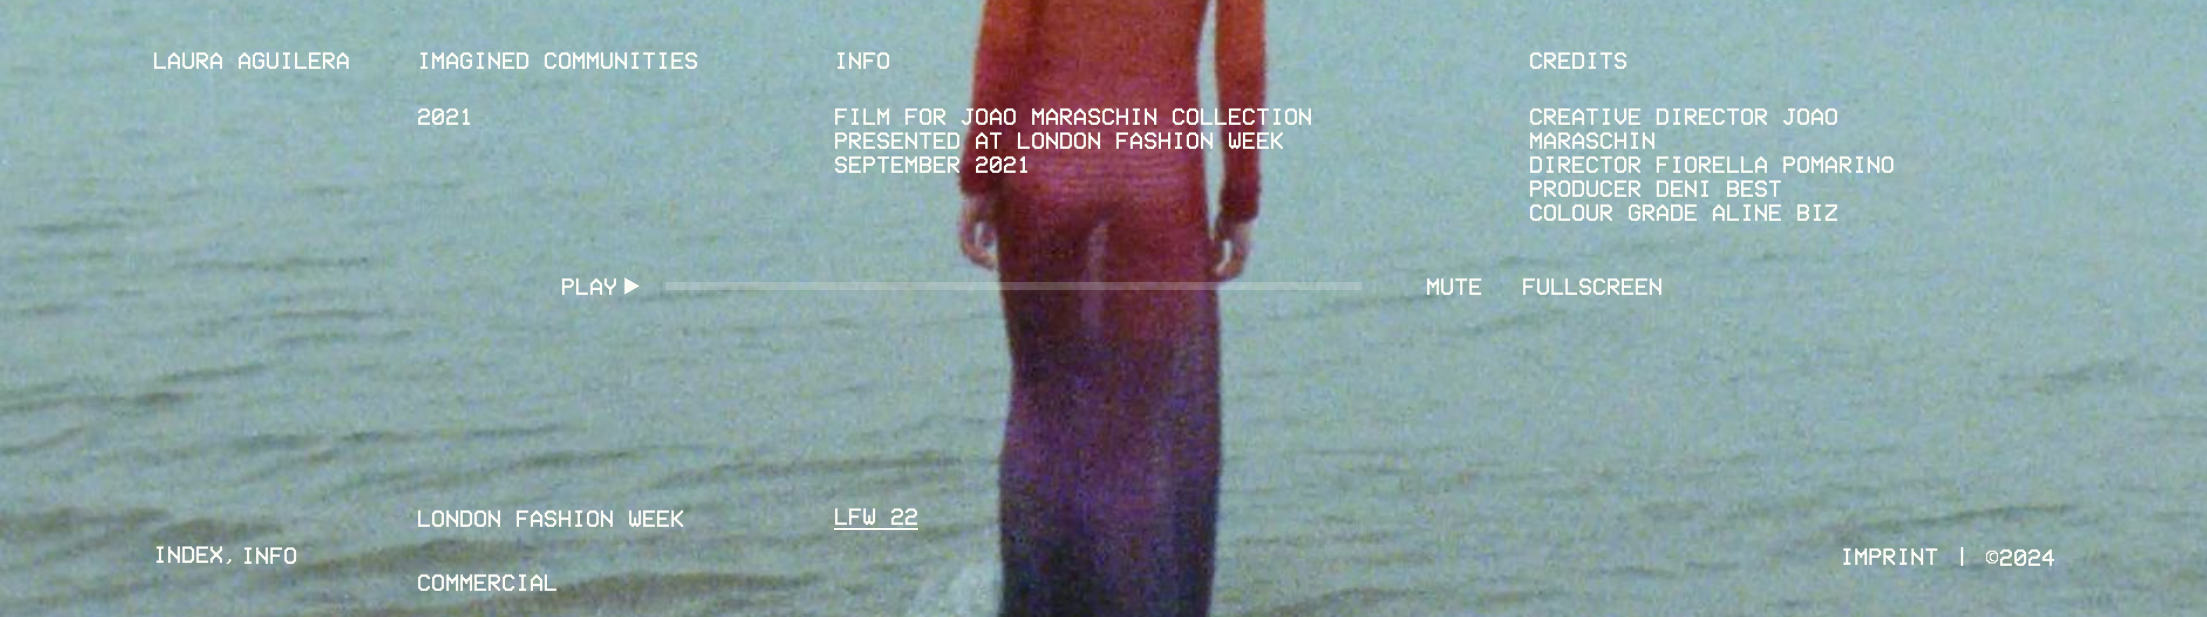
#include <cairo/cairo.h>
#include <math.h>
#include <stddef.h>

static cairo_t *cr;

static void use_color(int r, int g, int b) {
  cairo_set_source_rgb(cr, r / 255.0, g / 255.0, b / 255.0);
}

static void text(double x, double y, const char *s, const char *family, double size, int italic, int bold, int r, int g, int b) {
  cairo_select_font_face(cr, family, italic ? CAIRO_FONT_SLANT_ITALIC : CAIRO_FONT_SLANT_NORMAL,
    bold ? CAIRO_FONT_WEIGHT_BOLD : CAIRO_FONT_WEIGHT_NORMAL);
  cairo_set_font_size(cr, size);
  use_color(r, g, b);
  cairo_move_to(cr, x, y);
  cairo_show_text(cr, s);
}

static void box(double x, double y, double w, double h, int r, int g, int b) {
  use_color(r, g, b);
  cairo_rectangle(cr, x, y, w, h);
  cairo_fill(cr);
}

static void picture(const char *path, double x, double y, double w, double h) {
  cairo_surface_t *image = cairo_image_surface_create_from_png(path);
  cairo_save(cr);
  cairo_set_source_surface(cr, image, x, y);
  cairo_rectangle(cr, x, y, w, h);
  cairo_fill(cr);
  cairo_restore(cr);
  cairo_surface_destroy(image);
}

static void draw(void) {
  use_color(255, 255, 255);
  cairo_paint(cr);
  picture("img_01.png", 0, 0, 2207, 617);
  box(834, 528, 84, 2, 252, 252, 247);
  cairo_new_path(cr);
  cairo_move_to(cr, 624.5, 294.5);
  cairo_line_to(cr, 624.5, 277.5);
  cairo_line_to(cr, 639.5, 286);
  cairo_close_path(cr);
  cairo_fill(cr);
  cairo_set_source_rgba(cr, 0.988, 0.988, 0.973, 0.2);
  cairo_rectangle(cr, 666, 282, 696, 8);
  cairo_fill(cr);
  text(153, 70, "LAURA AGUILERA", "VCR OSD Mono", 24, 0, 0, 252, 252, 247);
  text(417, 70, "IMAGINED COMMUNITIES", "VCR OSD Mono", 24, 0, 0, 252, 252, 247);
  text(834, 70, "INFO", "VCR OSD Mono", 24, 0, 0, 252, 252, 247);
  text(1529, 70, "CREDITS", "VCR OSD Mono", 24, 0, 0, 252, 252, 247);
  text(417, 126, "2021", "VCR OSD Mono", 24, 0, 0, 252, 252, 247);
  text(834, 126, "FILM FOR JOAO MARASCHIN COLLECTION", "VCR OSD Mono", 24, 0, 0, 252, 252, 247);
  text(834, 150, "PRESENTED AT LONDON FASHION WEEK", "VCR OSD Mono", 24, 0, 0, 252, 252, 247);
  text(834, 174, "SEPTEMBER 2021", "VCR OSD Mono", 24, 0, 0, 252, 252, 247);
  text(1529, 126, "CREATIVE DIRECTOR JOAO", "VCR OSD Mono", 24, 0, 0, 252, 252, 247);
  text(1529, 150, "MARASCHIN", "VCR OSD Mono", 24, 0, 0, 252, 252, 247);
  text(1529, 174, "DIRECTOR FIORELLA POMARINO", "VCR OSD Mono", 24, 0, 0, 252, 252, 247);
  text(1529, 198, "PRODUCER DENI BEST", "VCR OSD Mono", 24, 0, 0, 252, 252, 247);
  text(1529, 222, "COLOUR GRADE ALINE BIZ", "VCR OSD Mono", 24, 0, 0, 252, 252, 247);
  text(417, 528, "LONDON FASHION WEEK", "VCR OSD Mono", 24, 0, 0, 252, 252, 247);
  text(834, 526, "LFW 22", "VCR OSD Mono", 24, 0, 0, 252, 252, 247);
  text(417, 592, "COMMERCIAL", "VCR OSD Mono", 24, 0, 0, 252, 252, 247);
  text(561, 296, "PLAY", "VCR OSD Mono", 24, 0, 0, 252, 252, 247);
  text(1426, 296, "MUTE", "VCR OSD Mono", 24, 0, 0, 252, 252, 247);
  text(1522, 296, "FULLSCREEN", "VCR OSD Mono", 24, 0, 0, 252, 252, 247);
  text(153, 564, "INDEX", "VCR OSD Mono", 24, 0, 0, 252, 252, 247);
  text(223, 565, ",", "VCR OSD Mono", 24, 0, 0, 252, 252, 247);
  text(241, 565, "INFO", "VCR OSD Mono", 24, 0, 0, 252, 252, 247);
  text(1840, 566, "IMPRINT", "VCR OSD Mono", 24, 0, 0, 252, 252, 247);
  text(1955, 567, "|", "VCR OSD Mono", 24, 0, 0, 252, 252, 247);
  text(1985, 567, "©2024", "VCR OSD Mono", 24, 0, 0, 252, 252, 247);
}

int main(void) {
  cairo_surface_t *surface = cairo_image_surface_create(CAIRO_FORMAT_RGB24, 2207, 617);
  cr = cairo_create(surface);
  cairo_font_options_t *options = cairo_font_options_create();
  cairo_font_options_set_hint_metrics(options, CAIRO_HINT_METRICS_OFF);
  cairo_font_options_set_hint_style(options, CAIRO_HINT_STYLE_NONE);
  cairo_set_font_options(cr, options);
  cairo_set_miter_limit(cr, 4);
  draw();
  cairo_surface_write_to_png(surface, "out.png");
  cairo_font_options_destroy(options);
  cairo_destroy(cr);
  cairo_surface_destroy(surface);
  return 0;
}
